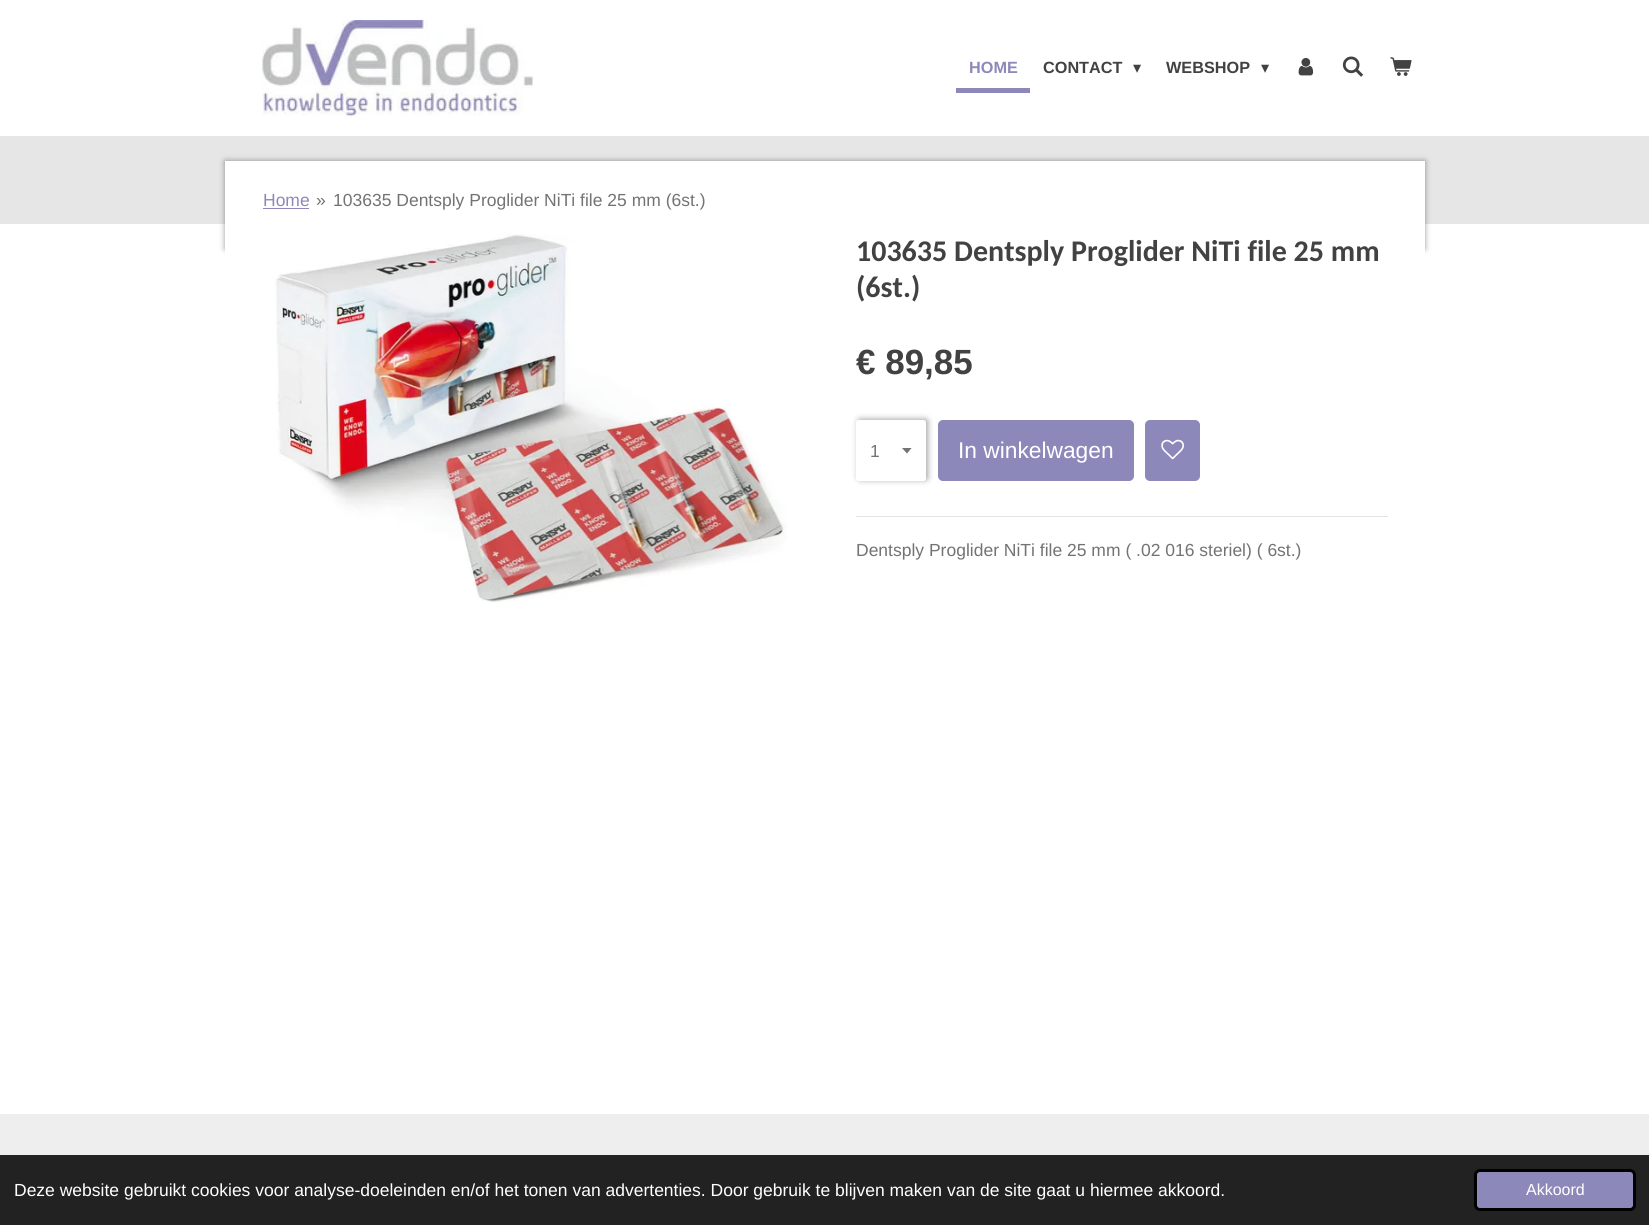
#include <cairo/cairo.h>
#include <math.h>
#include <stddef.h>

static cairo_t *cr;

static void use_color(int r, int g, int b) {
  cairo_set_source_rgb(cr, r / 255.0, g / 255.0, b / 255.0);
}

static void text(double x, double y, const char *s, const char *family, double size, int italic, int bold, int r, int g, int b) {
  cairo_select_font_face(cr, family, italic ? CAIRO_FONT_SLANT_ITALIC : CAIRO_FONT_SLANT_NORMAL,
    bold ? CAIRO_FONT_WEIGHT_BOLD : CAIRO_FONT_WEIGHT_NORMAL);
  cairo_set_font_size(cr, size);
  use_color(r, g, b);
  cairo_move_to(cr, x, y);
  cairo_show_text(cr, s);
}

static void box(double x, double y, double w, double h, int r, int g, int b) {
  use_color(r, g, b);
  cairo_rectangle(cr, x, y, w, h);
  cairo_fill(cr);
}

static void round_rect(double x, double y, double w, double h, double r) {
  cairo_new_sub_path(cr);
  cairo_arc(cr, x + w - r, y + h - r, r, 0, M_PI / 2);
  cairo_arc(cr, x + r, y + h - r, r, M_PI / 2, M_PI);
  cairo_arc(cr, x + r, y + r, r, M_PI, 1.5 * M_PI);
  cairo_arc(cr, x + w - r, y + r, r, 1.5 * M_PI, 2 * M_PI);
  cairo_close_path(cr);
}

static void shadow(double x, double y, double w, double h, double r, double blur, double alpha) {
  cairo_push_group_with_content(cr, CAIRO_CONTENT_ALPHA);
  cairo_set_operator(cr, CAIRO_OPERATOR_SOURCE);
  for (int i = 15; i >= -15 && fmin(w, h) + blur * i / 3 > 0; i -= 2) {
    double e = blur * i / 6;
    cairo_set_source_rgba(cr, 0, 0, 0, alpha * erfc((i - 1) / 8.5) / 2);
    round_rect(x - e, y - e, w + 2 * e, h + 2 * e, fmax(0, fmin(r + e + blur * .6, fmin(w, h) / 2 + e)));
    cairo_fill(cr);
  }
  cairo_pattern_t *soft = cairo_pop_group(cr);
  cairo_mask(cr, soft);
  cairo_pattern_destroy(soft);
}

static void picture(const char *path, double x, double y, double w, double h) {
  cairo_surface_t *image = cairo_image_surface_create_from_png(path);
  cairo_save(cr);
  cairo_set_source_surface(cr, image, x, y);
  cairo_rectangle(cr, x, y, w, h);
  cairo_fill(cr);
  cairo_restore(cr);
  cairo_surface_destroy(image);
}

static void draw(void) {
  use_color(255, 255, 255);
  cairo_paint(cr);
  picture("img_01.png", 262, 20, 271, 97);
  box(956, 88, 74, 5, 141, 136, 186);
  picture("img_02.png", 1298, 57, 16, 19);
  picture("img_03.png", 1342, 56, 22, 21);
  picture("img_04.png", 1390, 57, 22, 19);
  box(0, 136, 1649, 88, 230, 230, 230);
  use_color(0, 0, 0);
  shadow(225, 161, 1200, 88, 0, 3, 0.4);
  box(225, 161, 1200, 94, 255, 255, 255);
  box(263, 208, 46, 1, 141, 136, 186);
  picture("img_05.png", 274, 234, 513, 369);
  use_color(0, 0, 0);
  shadow(858, 419, 70, 61, 2.5, 3, 0.35);
  use_color(255, 255, 255);
  round_rect(856, 420, 70, 61, 2.5);
  cairo_fill(cr);
  cairo_save(cr);
  cairo_rectangle(cr, 901, 448, 12, 6);
  cairo_clip(cr);
  use_color(115, 115, 115);
  cairo_new_path(cr);
  cairo_move_to(cr, 907, 453.5);
  cairo_line_to(cr, 901.5, 447.5);
  cairo_line_to(cr, 912, 447.5);
  cairo_close_path(cr);
  cairo_fill(cr);
  cairo_restore(cr);
  use_color(141, 136, 186);
  round_rect(938, 420, 196, 61, 5);
  cairo_fill(cr);
  round_rect(1145, 420, 55, 61, 5);
  cairo_fill(cr);
  picture("img_06.png", 1161, 439, 23, 21);
  box(856, 516, 532, 1, 227, 227, 227);
  box(0, 1114, 1649, 41, 238, 238, 238);
  box(0, 1155, 1649, 70, 34, 34, 34);
  use_color(141, 136, 186);
  round_rect(1475.5, 1170.5, 159, 39, 4.5);
  cairo_fill_preserve(cr);
  use_color(0, 0, 0);
  cairo_set_line_width(cr, 3);
  cairo_stroke(cr);
  text(969, 73, "HOME", "Liberation Sans", 16.25, 0, 1, 141, 136, 186);
  text(1043, 73, "CONTACT", "Liberation Sans", 16.25, 0, 1, 66, 66, 66);
  text(1133, 73, "▾", "DejaVu Sans", 16.25, 0, 0, 66, 66, 66);
  text(1166, 73, "WEBSHOP", "Liberation Sans", 16.25, 0, 1, 66, 66, 66);
  text(1261, 73, "▾", "DejaVu Sans", 16.25, 0, 0, 66, 66, 66);
  text(263, 206, "Home", "Liberation Sans", 17.5, 0, 0, 141, 136, 186);
  text(316, 206, "»", "Liberation Sans", 17.5, 0, 0, 115, 115, 115);
  text(333, 206, "103635 Dentsply Proglider NiTi file 25 mm (6st.)", "Liberation Sans", 17.5, 0, 0, 115, 115, 115);
  text(856, 261, "103635 Dentsply Proglider NiTi file 25 mm", "Carlito", 30, 0, 1, 66, 66, 66);
  text(856, 297, "(6st.)", "Carlito", 30, 0, 1, 66, 66, 66);
  text(856, 374, "€ 89,85", "Liberation Sans", 35, 0, 1, 66, 66, 66);
  text(870, 457, "1", "Liberation Sans", 17.5, 0, 0, 115, 115, 115);
  text(958, 458, "In winkelwagen", "Liberation Sans", 22.75, 0, 0, 255, 255, 255);
  text(856, 556, "Dentsply Proglider NiTi file 25 mm ( .02 016 steriel) ( 6st.)", "Liberation Sans", 17.5, 0, 0, 115, 115, 115);
  text(14, 1196, "Deze website gebruikt cookies voor analyse-doeleinden en/of het tonen van advertenties. Door gebruik te blijven maken van de site gaat u hiermee akkoord.", "Liberation Sans", 17.5, 0, 0, 255, 255, 255);
  text(1526, 1195, "Akkoord", "Liberation Sans", 16, 0, 0, 255, 255, 255);
}

int main(void) {
  cairo_surface_t *surface = cairo_image_surface_create(CAIRO_FORMAT_RGB24, 1649, 1225);
  cr = cairo_create(surface);
  cairo_font_options_t *options = cairo_font_options_create();
  cairo_font_options_set_hint_metrics(options, CAIRO_HINT_METRICS_OFF);
  cairo_font_options_set_hint_style(options, CAIRO_HINT_STYLE_NONE);
  cairo_set_font_options(cr, options);
  cairo_set_miter_limit(cr, 4);
  draw();
  cairo_surface_write_to_png(surface, "out.png");
  cairo_font_options_destroy(options);
  cairo_destroy(cr);
  cairo_surface_destroy(surface);
  return 0;
}
